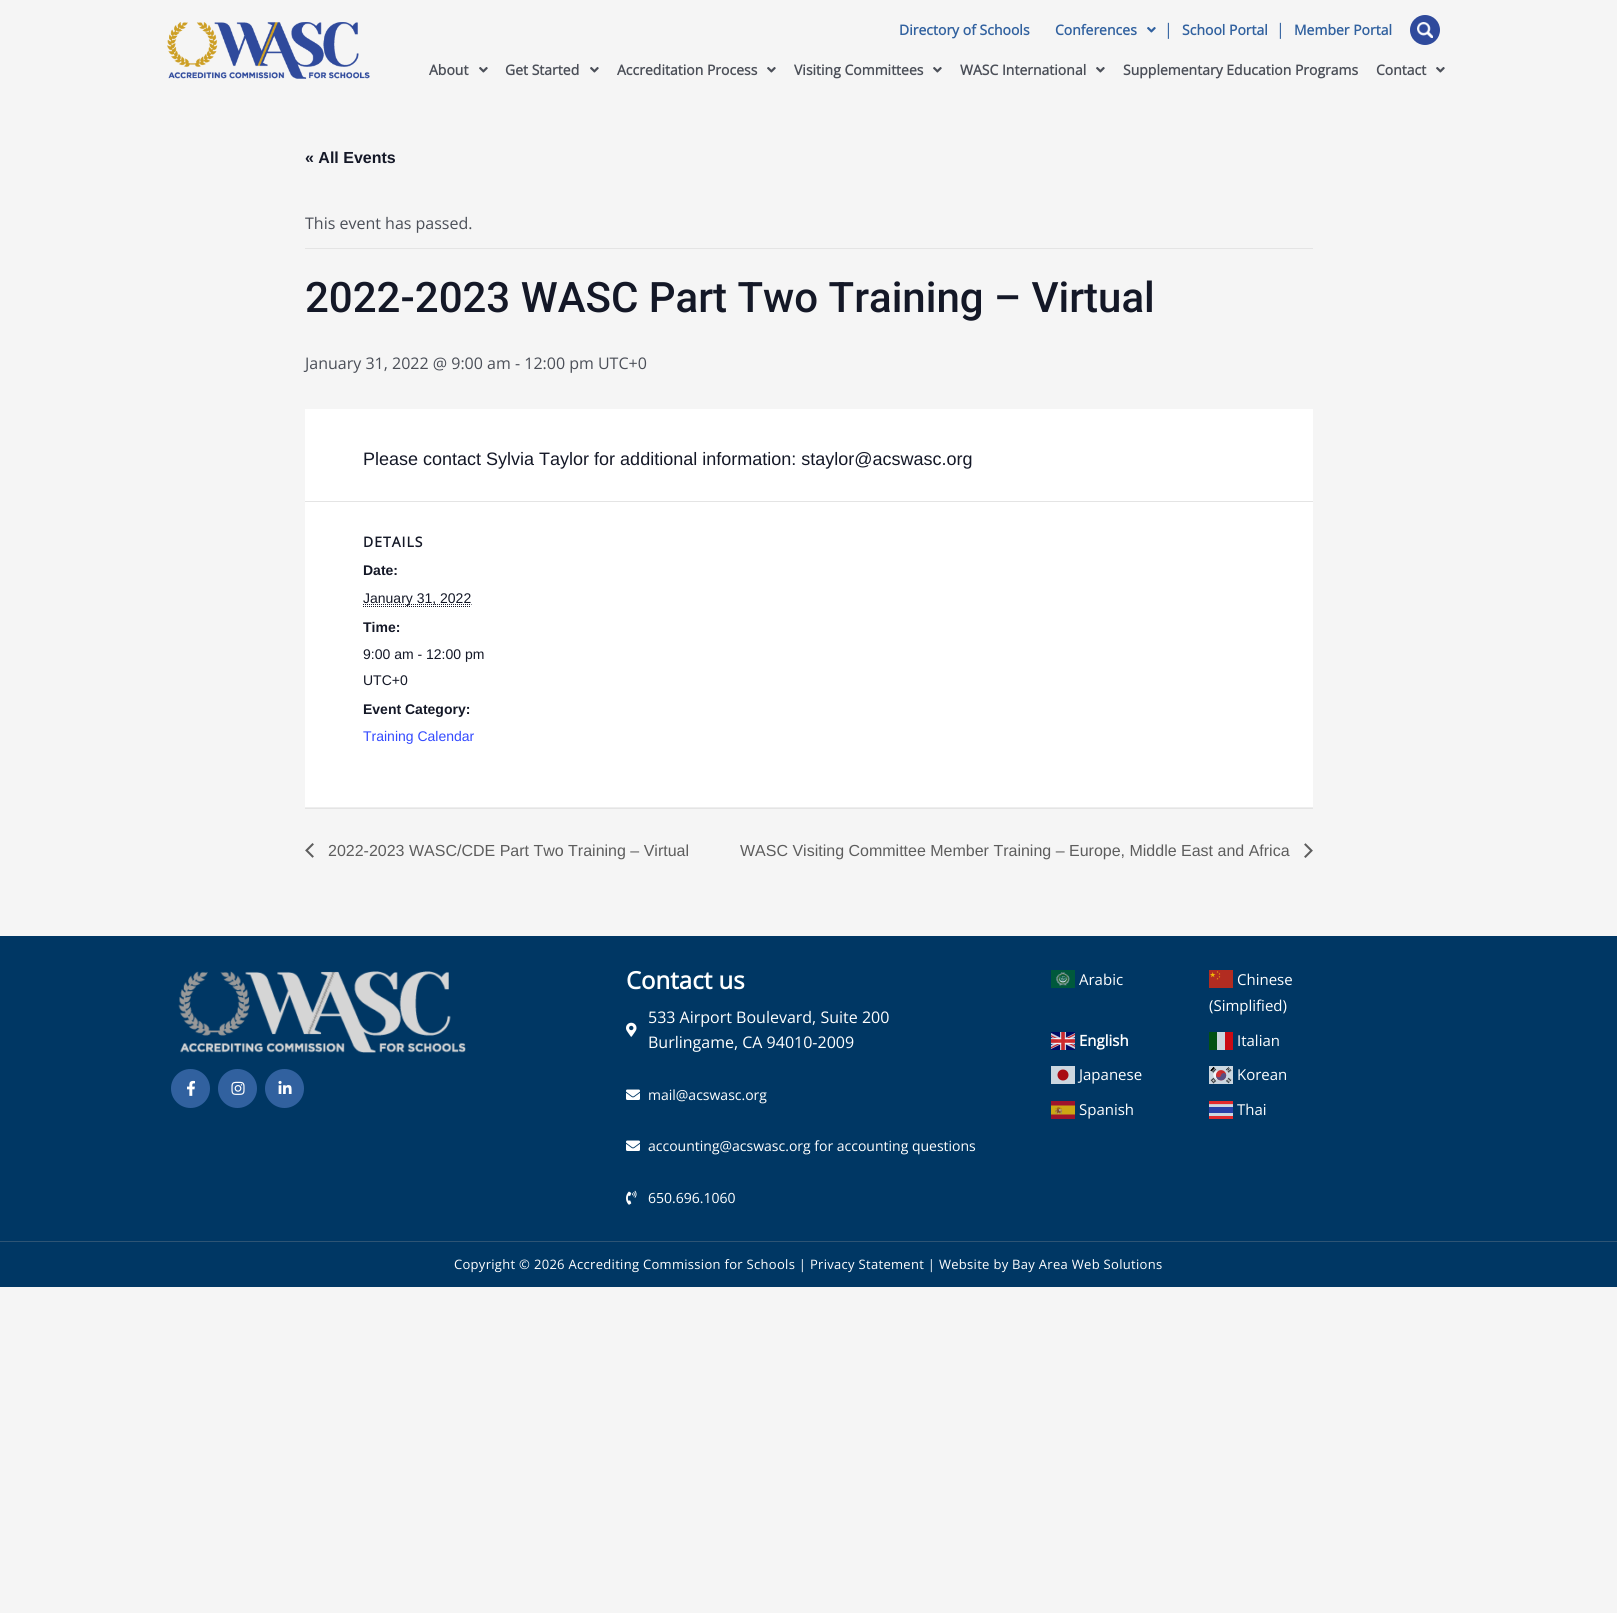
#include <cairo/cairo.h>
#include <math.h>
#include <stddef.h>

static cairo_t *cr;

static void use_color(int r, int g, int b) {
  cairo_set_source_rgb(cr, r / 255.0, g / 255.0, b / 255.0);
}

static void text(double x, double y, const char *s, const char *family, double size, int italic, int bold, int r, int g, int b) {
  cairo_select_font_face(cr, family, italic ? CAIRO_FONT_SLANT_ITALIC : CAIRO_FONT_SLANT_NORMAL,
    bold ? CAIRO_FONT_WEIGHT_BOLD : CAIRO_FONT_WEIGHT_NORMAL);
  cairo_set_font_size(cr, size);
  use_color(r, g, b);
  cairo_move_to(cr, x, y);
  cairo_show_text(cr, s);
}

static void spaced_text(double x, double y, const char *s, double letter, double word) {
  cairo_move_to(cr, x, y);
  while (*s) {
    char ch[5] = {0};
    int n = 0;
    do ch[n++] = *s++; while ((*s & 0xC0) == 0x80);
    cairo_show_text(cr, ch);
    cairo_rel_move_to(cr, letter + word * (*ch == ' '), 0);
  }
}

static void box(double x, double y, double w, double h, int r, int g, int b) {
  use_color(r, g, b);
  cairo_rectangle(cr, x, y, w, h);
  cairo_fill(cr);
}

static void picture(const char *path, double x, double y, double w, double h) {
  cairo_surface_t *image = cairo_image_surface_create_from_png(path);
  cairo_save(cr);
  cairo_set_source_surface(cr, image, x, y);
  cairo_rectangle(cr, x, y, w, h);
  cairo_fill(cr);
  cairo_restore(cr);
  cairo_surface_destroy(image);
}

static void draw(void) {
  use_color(245, 245, 245);
  cairo_paint(cr);
  picture("img_01.png", 167, 22, 203, 57);
  picture("img_02.png", 1147, 27, 9, 6);
  use_color(47, 74, 156);
  cairo_arc(cr, 1425, 30, 15, 0, 2 * M_PI);
  cairo_fill(cr);
  picture("img_03.png", 1417, 22, 16, 16);
  picture("img_04.png", 479, 67, 9, 6);
  picture("img_04.png", 590, 67, 9, 6);
  picture("img_04.png", 767, 67, 9, 6);
  picture("img_04.png", 933, 67, 9, 6);
  picture("img_04.png", 1096, 67, 9, 6);
  picture("img_04.png", 1436, 67, 9, 6);
  box(305, 248, 1008, 1, 228, 228, 228);
  box(305, 409, 1008, 398, 255, 255, 255);
  box(305, 807, 1008, 1, 238, 238, 238);
  box(305, 501, 1008, 1, 228, 228, 228);
  cairo_new_path(cr);
  cairo_move_to(cr, 363, 606.5);
  cairo_line_to(cr, 471, 606.5);
  use_color(20, 24, 39);
  cairo_set_line_width(cr, 1);
  cairo_set_dash(cr, (double[]){1, 1}, 2, 0);
  cairo_stroke(cr);
  cairo_new_path(cr);
  cairo_move_to(cr, 363, 604.5);
  cairo_line_to(cr, 471.5, 604.5);
  cairo_stroke(cr);
  box(305, 808, 1008, 1, 228, 228, 228);
  picture("img_05.png", 305, 843, 9, 15);
  picture("img_06.png", 1304, 843, 9, 15);
  box(0, 936, 1617, 305, 0, 55, 100);
  picture("img_07.png", 178, 971, 288, 82);
  use_color(49, 97, 159);
  cairo_arc(cr, 190.5, 1088.5, 19.5, 0, 2 * M_PI);
  cairo_fill(cr);
  picture("img_08.png", 187, 1080, 8, 16);
  cairo_arc(cr, 237.5, 1088.5, 19.5, 0, 2 * M_PI);
  cairo_fill(cr);
  picture("img_09.png", 231, 1081, 14, 14);
  cairo_arc(cr, 284.5, 1088.5, 19.5, 0, 2 * M_PI);
  cairo_fill(cr);
  picture("img_10.png", 278, 1080, 14, 14);
  picture("img_11.png", 626, 1022, 11, 15);
  picture("img_12.png", 626, 1089, 14, 11);
  picture("img_12.png", 626, 1140, 14, 11);
  picture("img_13.png", 626, 1190, 11, 15);
  picture("img_14.png", 1051, 970, 24, 18);
  picture("img_15.png", 1209, 970, 24, 18);
  picture("img_16.png", 1051, 1032, 24, 18);
  box(1209, 1032, 8, 18, 0, 81, 20);
  box(1217, 1032, 8, 18, 204, 215, 224);
  box(1225, 1032, 8, 18, 202, 11, 20);
  box(1051, 1066, 24, 18, 204, 215, 224);
  use_color(169, 11, 20);
  cairo_arc(cr, 1063, 1075, 5.5, 0, 2 * M_PI);
  cairo_fill(cr);
  picture("img_17.png", 1209, 1066, 24, 18);
  picture("img_18.png", 1051, 1101, 24, 18);
  picture("img_19.png", 1209, 1101, 24, 18);
  box(0, 1242, 1617, 45, 0, 55, 100);
  box(0, 1241, 1617, 1, 45, 84, 117);
  text(899, 35, "Directory of Schools", "Open Sans", 14, 0, 1, 49, 97, 159);
  text(1055, 35, "Conferences", "Open Sans", 14, 0, 1, 49, 97, 159);
  text(1164, 35, "|", "Open Sans", 16, 0, 0, 49, 97, 159);
  text(1182, 35, "School Portal", "Open Sans", 14, 0, 1, 49, 97, 159);
  text(1276, 35, "|", "Open Sans", 16, 0, 0, 49, 97, 159);
  text(1294, 35, "Member Portal", "Open Sans", 14, 0, 1, 49, 97, 159);
  text(429, 75, "About", "Open Sans", 14, 0, 1, 75, 79, 88);
  text(505, 75, "Get Started", "Open Sans", 14, 0, 1, 75, 79, 88);
  text(617, 75, "Accreditation Process", "Open Sans", 14, 0, 1, 75, 79, 88);
  text(794, 75, "Visiting Committees", "Open Sans", 14, 0, 1, 75, 79, 88);
  text(960, 75, "WASC International", "Open Sans", 14, 0, 1, 75, 79, 88);
  text(1123, 75, "Supplementary Education Programs", "Open Sans", 14, 0, 1, 75, 79, 88);
  text(1376, 75, "Contact", "Open Sans", 14, 0, 1, 75, 79, 88);
  text(305, 163, "« All Events", "Liberation Sans", 16, 0, 1, 20, 24, 39);
  text(305, 229, "This event has passed.", "Open Sans", 16, 0, 0, 75, 79, 88);
  text(305, 312, "2022-2023 WASC Part Two Training – Virtual", "Roboto Medium", 42, 0, 0, 20, 24, 39);
  text(305, 369, "January 31, 2022 @ 9:00 am - 12:00 pm UTC+0", "Open Sans", 16, 0, 0, 75, 79, 88);
  text(363, 465, "Please contact Sylvia Taylor for additional information: staylor@acswasc.org", "Liberation Sans", 18, 0, 0, 20, 24, 39);
  cairo_select_font_face(cr, "Open Sans", CAIRO_FONT_SLANT_NORMAL, CAIRO_FONT_WEIGHT_BOLD);
  cairo_set_font_size(cr, 14);
  spaced_text(363, 547, "DETAILS", 1, 0);
  text(363, 575, "Date:", "Liberation Sans", 14, 0, 1, 20, 24, 39);
  text(363, 603, "January 31, 2022", "Liberation Sans", 14, 0, 0, 20, 24, 39);
  text(363, 632, "Time:", "Liberation Sans", 14, 0, 1, 20, 24, 39);
  text(363, 659, "9:00 am - 12:00 pm", "Liberation Sans", 14, 0, 0, 20, 24, 39);
  text(363, 685, "UTC+0", "Liberation Sans", 14, 0, 0, 20, 24, 39);
  text(363, 714, "Event Category:", "Liberation Sans", 14, 0, 1, 20, 24, 39);
  text(363, 741, "Training Calendar", "Liberation Sans", 14, 0, 0, 51, 74, 255);
  text(328, 856, "2022-2023 WASC/CDE Part Two Training – Virtual", "Liberation Sans", 16, 0, 0, 93, 93, 93);
  text(740, 856, "WASC Visiting Committee Member Training – Europe, Middle East and Africa", "Liberation Sans", 16, 0, 0, 93, 93, 93);
  text(626, 989, "Contact us", "Open Sans", 24, 0, 1, 255, 255, 255);
  text(648, 1023, "533 Airport Boulevard, Suite 200", "Open Sans", 16, 0, 0, 255, 255, 255);
  text(648, 1048, "Burlingame, CA 94010-2009", "Open Sans", 16, 0, 0, 255, 255, 255);
  text(648, 1100, "mail@acswasc.org", "Open Sans", 14, 0, 0, 255, 255, 255);
  text(648, 1151, "accounting@acswasc.org for accounting questions", "Open Sans", 14, 0, 0, 255, 255, 255);
  text(648, 1203, "650.696.1060", "Open Sans", 14, 0, 0, 255, 255, 255);
  text(1079, 985, "Arabic", "Open Sans", 15, 0, 0, 255, 255, 255);
  text(1237, 985, "Chinese", "Open Sans", 15, 0, 0, 255, 255, 255);
  text(1209, 1011, "(Simplified)", "Open Sans", 15, 0, 0, 255, 255, 255);
  text(1079, 1046, "English", "Open Sans", 15, 0, 1, 255, 255, 255);
  text(1237, 1046, "Italian", "Open Sans", 15, 0, 0, 255, 255, 255);
  text(1079, 1080, "Japanese", "Open Sans", 15, 0, 0, 255, 255, 255);
  text(1237, 1080, "Korean", "Open Sans", 15, 0, 0, 255, 255, 255);
  text(1079, 1115, "Spanish", "Open Sans", 15, 0, 0, 255, 255, 255);
  text(1237, 1115, "Thai", "Open Sans", 15, 0, 0, 255, 255, 255);
  cairo_set_font_size(cr, 13);
  spaced_text(454, 1269, "Copyright © 2026 Accrediting Commission for Schools | Privacy Statement | Website by Bay Area Web Solutions", 0.3, 0);
}

int main(void) {
  cairo_surface_t *surface = cairo_image_surface_create(CAIRO_FORMAT_RGB24, 1617, 1613);
  cr = cairo_create(surface);
  cairo_font_options_t *options = cairo_font_options_create();
  cairo_font_options_set_hint_metrics(options, CAIRO_HINT_METRICS_OFF);
  cairo_font_options_set_hint_style(options, CAIRO_HINT_STYLE_NONE);
  cairo_set_font_options(cr, options);
  cairo_set_miter_limit(cr, 4);
  draw();
  cairo_surface_write_to_png(surface, "out.png");
  cairo_font_options_destroy(options);
  cairo_destroy(cr);
  cairo_surface_destroy(surface);
  return 0;
}
